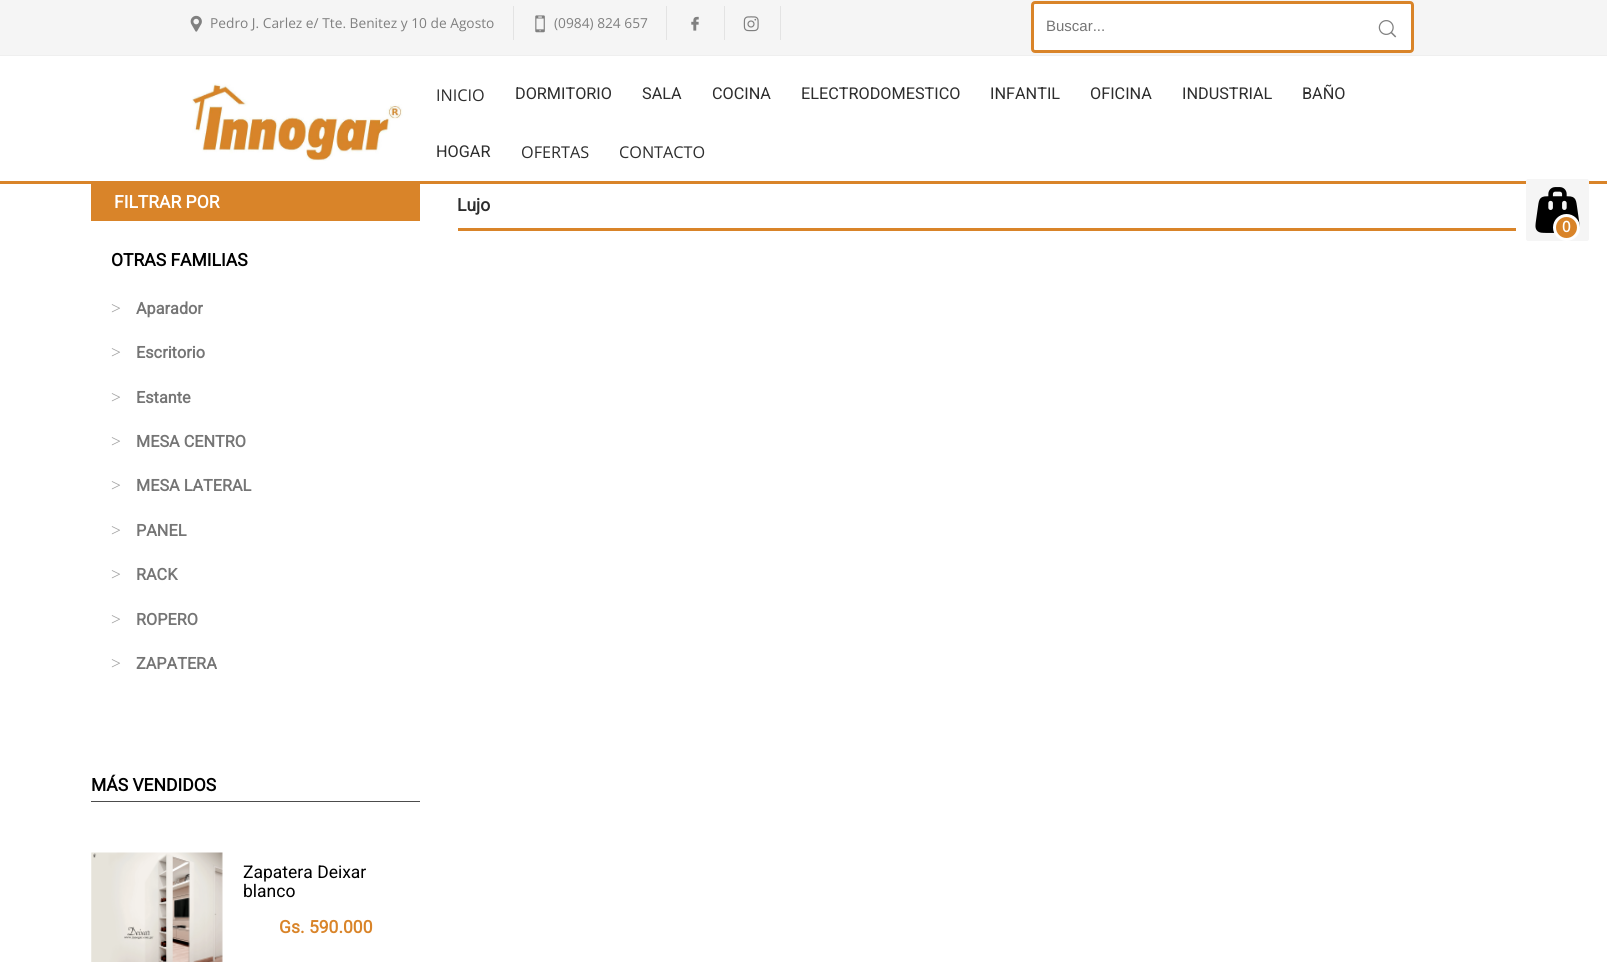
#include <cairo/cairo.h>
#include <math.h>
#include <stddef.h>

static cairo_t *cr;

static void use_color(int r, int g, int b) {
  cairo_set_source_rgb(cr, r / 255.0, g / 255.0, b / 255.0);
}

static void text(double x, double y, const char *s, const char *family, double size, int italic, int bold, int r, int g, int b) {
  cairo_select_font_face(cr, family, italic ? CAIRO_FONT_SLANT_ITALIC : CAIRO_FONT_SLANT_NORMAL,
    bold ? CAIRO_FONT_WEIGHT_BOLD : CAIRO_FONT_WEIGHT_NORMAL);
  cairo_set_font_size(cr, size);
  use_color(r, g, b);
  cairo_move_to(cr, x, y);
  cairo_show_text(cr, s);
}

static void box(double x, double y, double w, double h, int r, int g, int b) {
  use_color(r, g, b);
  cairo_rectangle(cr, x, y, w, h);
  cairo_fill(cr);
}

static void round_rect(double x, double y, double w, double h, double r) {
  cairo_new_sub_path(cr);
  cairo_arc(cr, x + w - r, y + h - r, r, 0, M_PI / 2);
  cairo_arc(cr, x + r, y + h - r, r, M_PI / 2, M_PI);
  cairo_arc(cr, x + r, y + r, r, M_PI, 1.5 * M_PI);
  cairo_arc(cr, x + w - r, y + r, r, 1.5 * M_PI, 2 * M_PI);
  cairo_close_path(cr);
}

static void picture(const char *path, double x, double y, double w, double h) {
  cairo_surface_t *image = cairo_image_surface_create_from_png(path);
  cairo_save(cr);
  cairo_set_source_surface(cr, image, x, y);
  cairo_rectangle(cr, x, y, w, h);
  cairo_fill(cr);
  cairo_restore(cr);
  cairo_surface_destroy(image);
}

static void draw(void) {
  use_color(255, 255, 255);
  cairo_paint(cr);
  box(0, 181, 1607, 3, 217, 132, 41);
  box(0, 0, 1607, 55, 245, 245, 245);
  box(0, 55, 1607, 1, 239, 239, 239);
  box(513, 6, 1, 34, 227, 227, 227);
  picture("img_01.png", 190, 15, 12, 17);
  box(666, 6, 1, 34, 227, 227, 227);
  picture("img_02.png", 535, 15, 10, 18);
  box(724, 6, 1, 34, 227, 227, 227);
  picture("img_03.png", 691, 16, 8, 15);
  box(780, 6, 1, 34, 227, 227, 227);
  picture("img_04.png", 743, 16, 16, 16);
  use_color(255, 255, 255);
  round_rect(1032.5, 2.5, 380, 49, 2.5);
  cairo_fill_preserve(cr);
  use_color(217, 132, 41);
  cairo_set_line_width(cr, 3);
  cairo_stroke(cr);
  picture("img_05.png", 1378, 20, 19, 18);
  picture("img_06.png", 192, 83, 211, 78);
  use_color(245, 245, 245);
  round_rect(1526, 179, 63, 62, 2.5);
  cairo_fill(cr);
  picture("img_07.png", 1535, 187, 45, 46);
  round_rect(1528, 181, 59, 58, 0.5);
  cairo_set_line_width(cr, 4);
  cairo_stroke(cr);
  use_color(217, 132, 41);
  cairo_arc(cr, 1566.5, 227.5, 12, 0, 2 * M_PI);
  cairo_fill_preserve(cr);
  use_color(255, 255, 255);
  cairo_set_line_width(cr, 3);
  cairo_stroke(cr);
  box(91, 184, 329, 37, 217, 132, 41);
  box(91, 801, 329, 1, 76, 76, 76);
  picture("img_08.png", 91, 852, 132, 110);
  box(458, 228, 1058, 3, 217, 132, 41);
  text(210, 28, "Pedro J. Carlez e/ Tte. Benitez y 10 de Agosto", "Open Sans", 13.75, 0, 0, 128, 128, 128);
  text(554, 28, "(0984) 824 657", "Open Sans", 13.75, 0, 0, 128, 128, 128);
  text(1046, 31, "Buscar...", "Liberation Sans", 15, 0, 0, 117, 117, 117);
  text(436, 101, "INICIO", "Open Sans", 16.25, 0, 0, 45, 45, 45);
  text(515, 99, "DORMITORIO", "Roboto", 16.25, 0, 0, 45, 45, 45);
  text(642, 99, "SALA", "Roboto", 16.25, 0, 0, 45, 45, 45);
  text(712, 99, "COCINA", "Roboto", 16.25, 0, 0, 45, 45, 45);
  text(801, 99, "ELECTRODOMESTICO", "Roboto", 16.25, 0, 0, 45, 45, 45);
  text(990, 99, "INFANTIL", "Roboto", 16.25, 0, 0, 45, 45, 45);
  text(1090, 99, "OFICINA", "Roboto", 16.25, 0, 0, 45, 45, 45);
  text(1182, 99, "INDUSTRIAL", "Roboto", 16.25, 0, 0, 45, 45, 45);
  text(1302, 99, "BAÑO", "Roboto", 16.25, 0, 0, 45, 45, 45);
  text(436, 157, "HOGAR", "Roboto", 16.25, 0, 0, 45, 45, 45);
  text(521, 158, "OFERTAS", "Open Sans", 16.25, 0, 0, 45, 45, 45);
  text(619, 158, "CONTACTO", "Open Sans", 16.25, 0, 0, 45, 45, 45);
  text(1562, 232, "0", "Open Sans", 15, 0, 1, 255, 255, 255);
  text(114, 208, "FILTRAR POR", "Roboto", 17.5, 0, 1, 255, 255, 255);
  text(111, 266, "OTRAS FAMILIAS", "Roboto", 17.5, 0, 1, 0, 0, 0);
  text(111, 314, ">", "Liberation Serif", 17.5, 0, 0, 161, 161, 161);
  text(136, 314, "Aparador", "Roboto", 16.25, 0, 1, 117, 117, 117);
  text(111, 358, ">", "Liberation Serif", 17.5, 0, 0, 161, 161, 161);
  text(136, 358, "Escritorio", "Roboto", 16.25, 0, 1, 117, 117, 117);
  text(111, 403, ">", "Liberation Serif", 17.5, 0, 0, 161, 161, 161);
  text(136, 403, "Estante", "Roboto", 16.25, 0, 1, 117, 117, 117);
  text(111, 447, ">", "Liberation Serif", 17.5, 0, 0, 161, 161, 161);
  text(136, 447, "MESA CENTRO", "Roboto", 16.25, 0, 1, 117, 117, 117);
  text(111, 491, ">", "Liberation Serif", 17.5, 0, 0, 161, 161, 161);
  text(136, 491, "MESA LATERAL", "Roboto", 16.25, 0, 1, 117, 117, 117);
  text(111, 536, ">", "Liberation Serif", 17.5, 0, 0, 161, 161, 161);
  text(136, 536, "PANEL", "Roboto", 16.25, 0, 1, 117, 117, 117);
  text(111, 580, ">", "Liberation Serif", 17.5, 0, 0, 161, 161, 161);
  text(136, 580, "RACK", "Roboto", 16.25, 0, 1, 117, 117, 117);
  text(111, 625, ">", "Liberation Serif", 17.5, 0, 0, 161, 161, 161);
  text(136, 625, "ROPERO", "Roboto", 16.25, 0, 1, 117, 117, 117);
  text(111, 669, ">", "Liberation Serif", 17.5, 0, 0, 161, 161, 161);
  text(136, 669, "ZAPATERA", "Roboto", 16.25, 0, 1, 117, 117, 117);
  text(91, 791, "MÁS VENDIDOS", "Roboto", 17.5, 0, 1, 0, 0, 0);
  text(243, 878, "Zapatera Deixar", "Roboto", 17.5, 0, 0, 0, 0, 0);
  text(243, 897, "blanco", "Roboto", 17.5, 0, 0, 0, 0, 0);
  text(279, 933, "Gs. 590.000", "Roboto", 17.5, 0, 1, 217, 132, 41);
  text(457, 211, "Lujo", "Roboto", 17.5, 0, 1, 45, 45, 45);
}

int main(void) {
  cairo_surface_t *surface = cairo_image_surface_create(CAIRO_FORMAT_RGB24, 1607, 962);
  cr = cairo_create(surface);
  cairo_font_options_t *options = cairo_font_options_create();
  cairo_font_options_set_hint_metrics(options, CAIRO_HINT_METRICS_OFF);
  cairo_font_options_set_hint_style(options, CAIRO_HINT_STYLE_NONE);
  cairo_set_font_options(cr, options);
  cairo_set_miter_limit(cr, 4);
  draw();
  cairo_surface_write_to_png(surface, "out.png");
  cairo_font_options_destroy(options);
  cairo_destroy(cr);
  cairo_surface_destroy(surface);
  return 0;
}
